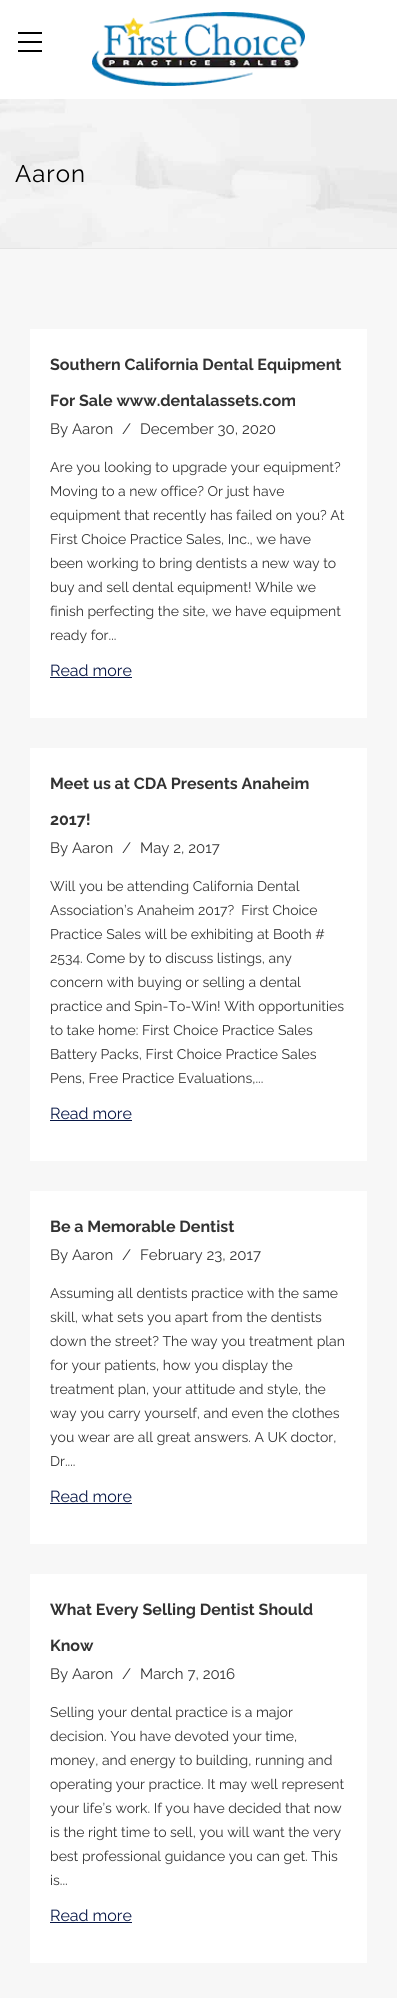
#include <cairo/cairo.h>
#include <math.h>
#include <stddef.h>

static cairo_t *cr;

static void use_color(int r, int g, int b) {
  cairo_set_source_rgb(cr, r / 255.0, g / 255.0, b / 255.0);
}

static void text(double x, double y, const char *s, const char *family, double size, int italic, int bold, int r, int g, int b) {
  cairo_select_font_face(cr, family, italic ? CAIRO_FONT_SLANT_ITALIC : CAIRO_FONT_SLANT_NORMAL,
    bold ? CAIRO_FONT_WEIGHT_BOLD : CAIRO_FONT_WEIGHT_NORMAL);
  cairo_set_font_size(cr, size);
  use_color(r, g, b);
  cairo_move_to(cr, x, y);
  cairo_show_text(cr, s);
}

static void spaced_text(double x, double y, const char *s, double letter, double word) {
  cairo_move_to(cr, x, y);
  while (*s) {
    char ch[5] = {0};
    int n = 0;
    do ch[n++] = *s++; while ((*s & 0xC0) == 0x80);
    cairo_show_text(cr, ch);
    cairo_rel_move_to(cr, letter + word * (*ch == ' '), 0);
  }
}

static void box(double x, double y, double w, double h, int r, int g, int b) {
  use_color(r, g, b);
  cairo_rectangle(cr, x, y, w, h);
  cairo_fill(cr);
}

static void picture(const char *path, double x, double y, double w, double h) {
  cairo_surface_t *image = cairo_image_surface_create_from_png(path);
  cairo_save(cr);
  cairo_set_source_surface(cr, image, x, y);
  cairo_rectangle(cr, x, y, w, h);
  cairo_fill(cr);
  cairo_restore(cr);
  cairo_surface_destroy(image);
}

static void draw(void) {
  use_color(255, 255, 255);
  cairo_paint(cr);
  box(18, 32, 24, 2, 0, 0, 0);
  box(18, 41, 24, 2, 0, 0, 0);
  box(18, 50, 24, 2, 0, 0, 0);
  picture("img_01.png", 92, 12, 213, 74);
  box(0, 249, 397, 1749, 247, 247, 247);
  picture("img_02.png", 0, 99, 397, 150);
  cairo_set_source_rgba(cr, 0, 0, 0, 0.05);
  cairo_rectangle(cr, 0, 248, 397, 1);
  cairo_fill(cr);
  box(30, 329, 337, 389, 255, 255, 255);
  box(50, 677, 82, 1, 7, 22, 69);
  box(30, 748, 337, 413, 255, 255, 255);
  box(50, 1120, 82, 1, 7, 22, 69);
  box(30, 1191, 337, 353, 255, 255, 255);
  box(50, 1503, 82, 1, 7, 22, 69);
  box(30, 1574, 337, 389, 255, 255, 255);
  box(50, 1922, 82, 1, 7, 22, 69);
  cairo_select_font_face(cr, "Raleway", CAIRO_FONT_SLANT_NORMAL, CAIRO_FONT_WEIGHT_NORMAL);
  cairo_set_font_size(cr, 24);
  use_color(0, 0, 0);
  spaced_text(15, 182, "Aaron", 1, 0);
  text(50, 370, "Southern California Dental Equipment", "Raleway", 16, 0, 1, 51, 51, 51);
  text(50, 406, "For Sale www.dentalassets.com", "Raleway", 16, 0, 1, 51, 51, 51);
  text(50, 434, "By Aaron", "Raleway", 15, 0, 0, 51, 51, 51);
  text(122, 434, "/", "Raleway", 15, 0, 0, 51, 51, 51);
  text(140, 434, "December 30, 2020", "Raleway", 15, 0, 0, 51, 51, 51);
  text(50, 472, "Are you looking to upgrade your equipment?", "Raleway", 14, 0, 0, 51, 51, 51);
  text(50, 496, "Moving to a new office? Or just have", "Raleway", 14, 0, 0, 51, 51, 51);
  text(50, 520, "equipment that recently has failed on you? At", "Raleway", 14, 0, 0, 51, 51, 51);
  text(50, 544, "First Choice Practice Sales, Inc., we have", "Raleway", 14, 0, 0, 51, 51, 51);
  text(50, 568, "been working to bring dentists a new way to", "Raleway", 14, 0, 0, 51, 51, 51);
  text(50, 592, "buy and sell dental equipment! While we", "Raleway", 14, 0, 0, 51, 51, 51);
  text(50, 616, "finish perfecting the site, we have equipment", "Raleway", 14, 0, 0, 51, 51, 51);
  text(50, 640, "ready for...", "Raleway", 14, 0, 0, 51, 51, 51);
  text(50, 676, "Read more", "Raleway", 16, 0, 0, 7, 22, 69);
  text(50, 789, "Meet us at CDA Presents Anaheim", "Raleway", 16, 0, 1, 51, 51, 51);
  text(50, 825, "2017!", "Raleway", 16, 0, 1, 51, 51, 51);
  text(50, 853, "By Aaron", "Raleway", 15, 0, 0, 51, 51, 51);
  text(122, 853, "/", "Raleway", 15, 0, 0, 51, 51, 51);
  text(140, 853, "May 2, 2017", "Raleway", 15, 0, 0, 51, 51, 51);
  text(50, 891, "Will you be attending California Dental", "Raleway", 14, 0, 0, 51, 51, 51);
  text(50, 915, "Association’s Anaheim 2017?  First Choice", "Raleway", 14, 0, 0, 51, 51, 51);
  text(50, 939, "Practice Sales will be exhibiting at Booth #", "Raleway", 14, 0, 0, 51, 51, 51);
  text(50, 963, "2534. Come by to discuss listings, any", "Raleway", 14, 0, 0, 51, 51, 51);
  text(50, 987, "concern with buying or selling a dental", "Raleway", 14, 0, 0, 51, 51, 51);
  text(50, 1011, "practice and Spin-To-Win! With opportunities", "Raleway", 14, 0, 0, 51, 51, 51);
  text(50, 1035, "to take home: First Choice Practice Sales", "Raleway", 14, 0, 0, 51, 51, 51);
  text(50, 1059, "Battery Packs, First Choice Practice Sales", "Raleway", 14, 0, 0, 51, 51, 51);
  text(50, 1083, "Pens, Free Practice Evaluations,...", "Raleway", 14, 0, 0, 51, 51, 51);
  text(50, 1119, "Read more", "Raleway", 16, 0, 0, 7, 22, 69);
  text(50, 1232, "Be a Memorable Dentist", "Raleway", 16, 0, 1, 51, 51, 51);
  text(50, 1260, "By Aaron", "Raleway", 15, 0, 0, 51, 51, 51);
  text(122, 1260, "/", "Raleway", 15, 0, 0, 51, 51, 51);
  text(140, 1260, "February 23, 2017", "Raleway", 15, 0, 0, 51, 51, 51);
  text(50, 1298, "Assuming all dentists practice with the same", "Raleway", 14, 0, 0, 51, 51, 51);
  text(50, 1322, "skill, what sets you apart from the dentists", "Raleway", 14, 0, 0, 51, 51, 51);
  text(50, 1346, "down the street? The way you treatment plan", "Raleway", 14, 0, 0, 51, 51, 51);
  text(50, 1370, "for your patients, how you display the", "Raleway", 14, 0, 0, 51, 51, 51);
  text(50, 1394, "treatment plan, your attitude and style, the", "Raleway", 14, 0, 0, 51, 51, 51);
  text(50, 1418, "way you carry yourself, and even the clothes", "Raleway", 14, 0, 0, 51, 51, 51);
  text(50, 1442, "you wear are all great answers. A UK doctor,", "Raleway", 14, 0, 0, 51, 51, 51);
  text(50, 1466, "Dr....", "Raleway", 14, 0, 0, 51, 51, 51);
  text(50, 1502, "Read more", "Raleway", 16, 0, 0, 7, 22, 69);
  text(50, 1615, "What Every Selling Dentist Should", "Raleway", 16, 0, 1, 51, 51, 51);
  text(50, 1651, "Know", "Raleway", 16, 0, 1, 51, 51, 51);
  text(50, 1679, "By Aaron", "Raleway", 15, 0, 0, 51, 51, 51);
  text(122, 1679, "/", "Raleway", 15, 0, 0, 51, 51, 51);
  text(140, 1679, "March 7, 2016", "Raleway", 15, 0, 0, 51, 51, 51);
  text(50, 1717, "Selling your dental practice is a major", "Raleway", 14, 0, 0, 51, 51, 51);
  text(50, 1741, "decision. You have devoted your time,", "Raleway", 14, 0, 0, 51, 51, 51);
  text(50, 1765, "money, and energy to building, running and", "Raleway", 14, 0, 0, 51, 51, 51);
  text(50, 1789, "operating your practice. It may well represent", "Raleway", 14, 0, 0, 51, 51, 51);
  text(50, 1813, "your life’s work. If you have decided that now", "Raleway", 14, 0, 0, 51, 51, 51);
  text(50, 1837, "is the right time to sell, you will want the very", "Raleway", 14, 0, 0, 51, 51, 51);
  text(50, 1861, "best professional guidance you can get. This", "Raleway", 14, 0, 0, 51, 51, 51);
  text(50, 1885, "is...", "Raleway", 14, 0, 0, 51, 51, 51);
  text(50, 1921, "Read more", "Raleway", 16, 0, 0, 7, 22, 69);
}

int main(void) {
  cairo_surface_t *surface = cairo_image_surface_create(CAIRO_FORMAT_RGB24, 397, 1998);
  cr = cairo_create(surface);
  cairo_font_options_t *options = cairo_font_options_create();
  cairo_font_options_set_hint_metrics(options, CAIRO_HINT_METRICS_OFF);
  cairo_font_options_set_hint_style(options, CAIRO_HINT_STYLE_NONE);
  cairo_set_font_options(cr, options);
  cairo_set_miter_limit(cr, 4);
  draw();
  cairo_surface_write_to_png(surface, "out.png");
  cairo_font_options_destroy(options);
  cairo_destroy(cr);
  cairo_surface_destroy(surface);
  return 0;
}
